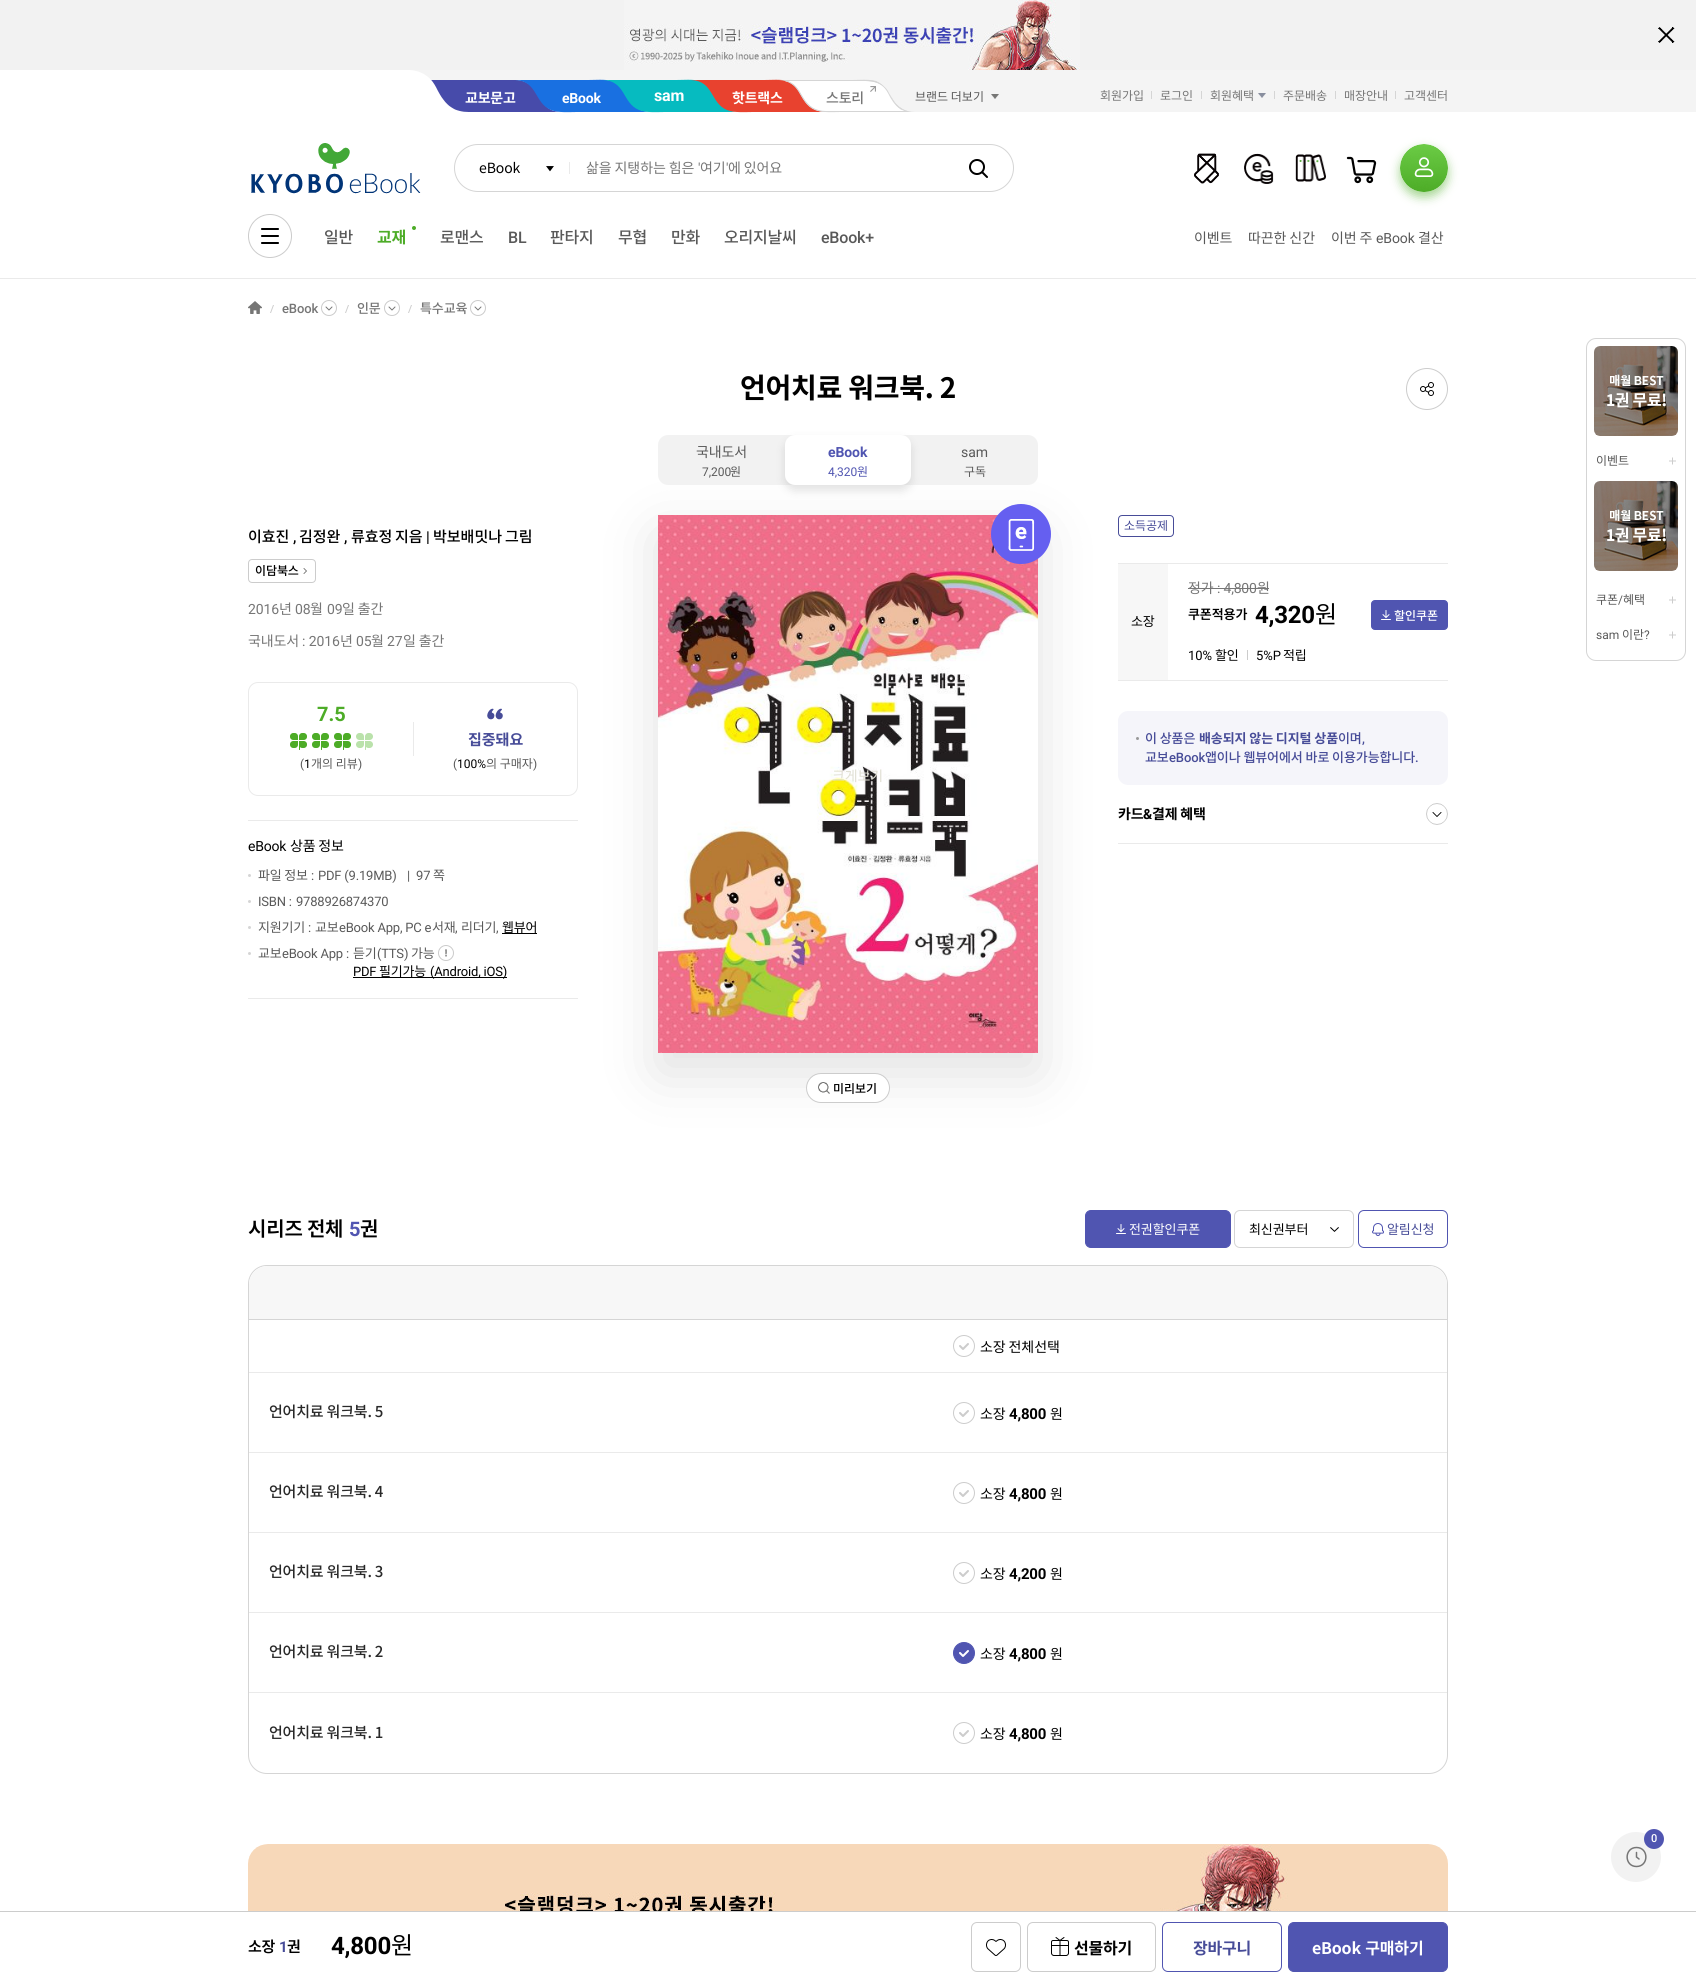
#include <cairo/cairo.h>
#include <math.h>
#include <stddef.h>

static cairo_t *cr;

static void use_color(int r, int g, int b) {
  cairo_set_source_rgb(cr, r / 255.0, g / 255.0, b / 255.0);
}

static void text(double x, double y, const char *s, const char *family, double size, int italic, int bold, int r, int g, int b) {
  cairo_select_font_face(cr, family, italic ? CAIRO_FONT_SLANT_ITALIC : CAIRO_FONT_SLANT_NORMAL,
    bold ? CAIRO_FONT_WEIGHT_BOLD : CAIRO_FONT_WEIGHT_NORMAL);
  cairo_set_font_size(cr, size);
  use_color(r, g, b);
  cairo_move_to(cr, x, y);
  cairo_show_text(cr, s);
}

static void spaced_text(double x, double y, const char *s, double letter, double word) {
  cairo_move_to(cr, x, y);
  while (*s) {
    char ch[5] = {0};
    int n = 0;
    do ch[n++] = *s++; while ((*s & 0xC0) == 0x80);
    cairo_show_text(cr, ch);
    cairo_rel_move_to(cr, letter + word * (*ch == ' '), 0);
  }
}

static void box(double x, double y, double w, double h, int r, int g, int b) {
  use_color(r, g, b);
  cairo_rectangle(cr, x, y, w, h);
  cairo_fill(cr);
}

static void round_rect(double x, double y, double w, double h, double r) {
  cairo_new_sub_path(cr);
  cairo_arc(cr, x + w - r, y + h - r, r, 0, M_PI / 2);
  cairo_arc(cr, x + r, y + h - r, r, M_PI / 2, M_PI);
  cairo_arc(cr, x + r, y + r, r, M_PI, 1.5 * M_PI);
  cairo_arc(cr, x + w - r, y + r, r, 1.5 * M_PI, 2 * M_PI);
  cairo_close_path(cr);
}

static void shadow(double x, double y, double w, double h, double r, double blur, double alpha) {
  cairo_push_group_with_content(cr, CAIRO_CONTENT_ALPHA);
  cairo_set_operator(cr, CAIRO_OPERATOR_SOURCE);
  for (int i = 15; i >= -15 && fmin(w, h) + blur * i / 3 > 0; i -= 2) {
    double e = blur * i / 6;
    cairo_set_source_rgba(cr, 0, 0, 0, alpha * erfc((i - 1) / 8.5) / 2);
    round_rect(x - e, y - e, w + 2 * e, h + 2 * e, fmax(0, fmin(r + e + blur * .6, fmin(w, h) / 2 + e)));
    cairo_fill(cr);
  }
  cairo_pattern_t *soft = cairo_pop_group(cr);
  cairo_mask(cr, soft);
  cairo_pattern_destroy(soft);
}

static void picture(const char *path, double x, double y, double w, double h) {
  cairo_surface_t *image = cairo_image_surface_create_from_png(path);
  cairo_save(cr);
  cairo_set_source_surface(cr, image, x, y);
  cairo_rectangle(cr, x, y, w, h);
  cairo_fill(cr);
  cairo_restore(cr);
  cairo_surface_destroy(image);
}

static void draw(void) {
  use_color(255, 255, 255);
  cairo_paint(cr);
  box(0, 0, 1696, 70, 242, 242, 242);
  picture("img_01.png", 624, 0, 456, 70);
  picture("img_02.png", 1658, 27, 17, 16);
  box(0, 278, 1696, 1, 234, 234, 234);
  box(410, 70, 1286, 42, 244, 244, 244);
  use_color(71, 75, 170);
  cairo_new_path(cr);
  cairo_move_to(cr, 431, 80);
  cairo_line_to(cr, 431, 112);
  cairo_line_to(cr, 563, 112);
  cairo_curve_to(cr, 552, 112, 545, 109, 537, 93);
  cairo_curve_to(cr, 530, 79, 515, 80, 515, 80);
  cairo_close_path(cr);
  cairo_fill(cr);
  picture("img_05.png", 991, 94, 8, 5);
  box(1151, 91, 1, 8, 213, 213, 213);
  box(1201, 91, 1, 8, 213, 213, 213);
  picture("img_06.png", 1258, 93, 8, 5);
  box(1274, 91, 1, 8, 213, 213, 213);
  box(1335, 91, 1, 8, 213, 213, 213);
  box(1395, 91, 1, 8, 213, 213, 213);
  picture("img_07.png", 251, 143, 170, 51);
  round_rect(454.5, 144.5, 559, 47, 23.5);
  cairo_set_line_width(cr, 1);
  cairo_stroke(cr);
  picture("img_08.png", 546, 166, 8, 6);
  box(569, 162, 1, 12, 234, 234, 234);
  picture("img_09.png", 969, 159, 19, 19);
  picture("img_10.png", 1194, 153, 25, 31);
  picture("img_11.png", 1244, 153, 30, 31);
  picture("img_12.png", 1295, 154, 31, 28);
  picture("img_13.png", 1346, 156, 31, 28);
  use_color(77, 172, 39);
  shadow(1400, 149, 48, 48, 24, 5, 0.5);
  picture("img_14.png", 1400, 144, 48, 48);
  picture("img_15.png", 248, 214, 44, 44);
  use_color(77, 172, 39);
  cairo_arc(cr, 414, 228, 2, 0, 2 * M_PI);
  cairo_fill(cr);
  picture("img_16.png", 248, 301, 14, 13);
  picture("img_17.png", 270, 305, 4, 8);
  picture("img_18.png", 321, 300, 16, 16);
  picture("img_17.png", 345, 305, 4, 8);
  picture("img_18.png", 384, 300, 16, 16);
  picture("img_17.png", 408, 305, 4, 8);
  picture("img_18.png", 470, 300, 16, 16);
  cairo_arc(cr, 1427, 389, 20.5, 0, 2 * M_PI);
  use_color(204, 204, 204);
  cairo_stroke(cr);
  picture("img_19.png", 1420, 382, 14, 14);
  round_rect(248.5, 682.5, 329, 113, 9.5);
  use_color(234, 234, 234);
  cairo_stroke(cr);
  box(248, 820, 330, 1, 234, 234, 234);
  box(248, 998, 330, 1, 234, 234, 234);
  round_rect(1118.5, 515.5, 55, 21, 3.5);
  use_color(71, 76, 152);
  cairo_stroke(cr);
  box(1118, 563, 330, 1, 234, 234, 234);
  box(1118, 680, 330, 1, 234, 234, 234);
  box(1118, 564, 50, 116, 247, 247, 247);
  use_color(245, 245, 250);
  round_rect(1118, 711, 330, 74, 10);
  cairo_fill(cr);
  box(1118, 843, 330, 1, 234, 234, 234);
  use_color(0, 0, 0);
  shadow(658, 535, 380, 538, 0, 30, 0.12);
  use_color(242, 242, 242);
  round_rect(658, 435, 380, 50, 10);
  cairo_fill(cr);
  use_color(0, 0, 0);
  shadow(785, 440, 126, 50, 10, 5, 0.12);
  use_color(255, 255, 255);
  round_rect(785, 435, 126, 50, 10);
  cairo_fill(cr);
  round_rect(248.5, 559.5, 67, 23, 3.5);
  use_color(204, 204, 204);
  cairo_stroke(cr);
  picture("img_20.png", 303, 568, 4, 6);
  picture("img_21.png", 290, 733, 17, 17);
  picture("img_21.png", 312, 733, 17, 17);
  picture("img_21.png", 334, 733, 17, 17);
  picture("img_21.png", 356, 733, 17, 17);
  picture("img_22.png", 290, 733, 17, 17);
  picture("img_22.png", 312, 733, 17, 17);
  picture("img_22.png", 334, 733, 17, 17);
  box(413, 722, 1, 34, 234, 234, 234);
  picture("img_23.png", 487, 708, 16, 12);
  use_color(213, 213, 213);
  cairo_arc(cr, 249.5, 875.5, 1.5, 0, 2 * M_PI);
  cairo_fill(cr);
  cairo_arc(cr, 249.5, 901.5, 1.5, 0, 2 * M_PI);
  cairo_fill(cr);
  cairo_arc(cr, 249.5, 927.5, 1.5, 0, 2 * M_PI);
  cairo_fill(cr);
  box(502, 933, 35, 1, 0, 0, 0);
  use_color(213, 213, 213);
  cairo_arc(cr, 249.5, 953.5, 1.5, 0, 2 * M_PI);
  cairo_fill(cr);
  picture("img_24.png", 438, 945, 16, 16);
  box(353, 977, 154, 1, 0, 0, 0);
  picture("img_26.png", 658, 515, 380, 538);
  picture("img_25.png", 991, 504, 60, 60);
  use_color(255, 255, 255);
  round_rect(806.5, 1073.5, 83, 29, 14.5);
  cairo_fill_preserve(cr);
  use_color(204, 204, 204);
  cairo_stroke(cr);
  picture("img_27.png", 818, 1082, 12, 12);
  box(1188, 588, 81, 1, 118, 118, 118);
  use_color(80, 85, 177);
  round_rect(1371.5, 600.5, 76, 29, 3.5);
  cairo_fill_preserve(cr);
  cairo_stroke(cr);
  picture("img_28.png", 1381, 610, 10, 10);
  box(1247, 650, 1, 10, 204, 204, 204);
  use_color(153, 153, 153);
  cairo_arc(cr, 1137.5, 738.5, 1.5, 0, 2 * M_PI);
  cairo_fill(cr);
  picture("img_29.png", 1426, 803, 22, 22);
  use_color(80, 85, 177);
  round_rect(1085.5, 1210.5, 145, 37, 5.5);
  cairo_fill_preserve(cr);
  cairo_stroke(cr);
  picture("img_28.png", 1116, 1224, 10, 10);
  round_rect(1234.5, 1210.5, 119, 37, 5.5);
  use_color(213, 213, 213);
  cairo_stroke(cr);
  picture("img_30.png", 1330, 1227, 9, 5);
  round_rect(1358.5, 1210.5, 89, 37, 5.5);
  use_color(80, 85, 177);
  cairo_stroke(cr);
  picture("img_31.png", 1372, 1223, 12, 13);
  round_rect(248.5, 1265.5, 1199, 508, 18.5);
  use_color(213, 213, 213);
  cairo_stroke(cr);
  cairo_save(cr);
  round_rect(249, 1266, 1198, 507, 18);
  cairo_clip(cr);
  use_color(247, 247, 247);
  cairo_new_path(cr);
  cairo_move_to(cr, 268, 1266);
  cairo_line_to(cr, 1428, 1266);
  cairo_curve_to(cr, 1438.5, 1266, 1447, 1274.5, 1447, 1285);
  cairo_line_to(cr, 1447, 1320);
  cairo_line_to(cr, 249, 1320);
  cairo_line_to(cr, 249, 1285);
  cairo_curve_to(cr, 249, 1274.5, 257.5, 1266, 268, 1266);
  cairo_close_path(cr);
  cairo_fill(cr);
  cairo_restore(cr);
  box(249, 1319, 1198, 1, 213, 213, 213);
  box(249, 1372, 1198, 1, 234, 234, 234);
  cairo_arc(cr, 964, 1346, 10.5, 0, 2 * M_PI);
  use_color(204, 204, 204);
  cairo_stroke(cr);
  picture("img_32.png", 959, 1343, 10, 7);
  box(249, 1452, 1198, 1, 234, 234, 234);
  cairo_arc(cr, 964, 1413, 10.5, 0, 2 * M_PI);
  use_color(204, 204, 204);
  cairo_stroke(cr);
  picture("img_32.png", 959, 1410, 10, 7);
  box(249, 1532, 1198, 1, 234, 234, 234);
  cairo_arc(cr, 964, 1493, 10.5, 0, 2 * M_PI);
  use_color(204, 204, 204);
  cairo_stroke(cr);
  picture("img_32.png", 959, 1490, 10, 7);
  box(249, 1612, 1198, 1, 234, 234, 234);
  cairo_arc(cr, 964, 1573, 10.5, 0, 2 * M_PI);
  use_color(204, 204, 204);
  cairo_stroke(cr);
  picture("img_32.png", 959, 1570, 10, 7);
  box(249, 1692, 1198, 1, 234, 234, 234);
  use_color(80, 85, 177);
  cairo_arc(cr, 964, 1653, 10.5, 0, 2 * M_PI);
  cairo_fill_preserve(cr);
  cairo_stroke(cr);
  picture("img_33.png", 959, 1650, 10, 7);
  cairo_arc(cr, 964, 1733, 10.5, 0, 2 * M_PI);
  use_color(204, 204, 204);
  cairo_stroke(cr);
  picture("img_32.png", 959, 1730, 10, 7);
  picture("img_34.png", 248, 1844, 1200, 67);
  box(0, 1911, 1696, 1, 204, 204, 204);
  round_rect(971.5, 1922.5, 49, 49, 5.5);
  cairo_stroke(cr);
  picture("img_35.png", 986, 1939, 20, 17);
  round_rect(1027.5, 1922.5, 128, 49, 5.5);
  cairo_stroke(cr);
  picture("img_36.png", 1051, 1937, 18, 19);
  round_rect(1162.5, 1922.5, 119, 49, 5.5);
  use_color(80, 85, 177);
  cairo_stroke(cr);
  round_rect(1288.5, 1922.5, 159, 49, 5.5);
  cairo_fill_preserve(cr);
  cairo_stroke(cr);
  round_rect(1586.5, 338.5, 99, 322, 9.5);
  use_color(213, 213, 213);
  cairo_stroke(cr);
  picture("img_37.png", 1594, 346, 84, 90);
  picture("img_38.png", 1669, 457, 7, 8);
  picture("img_37.png", 1594, 481, 84, 90);
  picture("img_38.png", 1669, 596, 7, 8);
  picture("img_38.png", 1669, 631, 7, 8);
  use_color(242, 242, 242);
  cairo_arc(cr, 1636, 1857, 25, 0, 2 * M_PI);
  cairo_fill(cr);
  cairo_new_path(cr);
  cairo_move_to(cr, 1636.5, 1866.5);
  cairo_curve_to(cr, 1649, 1866.5, 1649, 1847.5, 1636.5, 1847.5);
  cairo_curve_to(cr, 1624, 1847.5, 1624, 1866.5, 1636.5, 1866.5);
  cairo_close_path(cr);
  use_color(118, 118, 118);
  cairo_set_line_width(cr, 1.5);
  cairo_stroke(cr);
  use_color(80, 85, 177);
  cairo_arc(cr, 1654, 1839, 10, 0, 2 * M_PI);
  cairo_fill(cr);
  cairo_new_path(cr);
  cairo_move_to(cr, 1636.5, 1852.5);
  cairo_line_to(cr, 1636.5, 1857);
  cairo_line_to(cr, 1639, 1859);
  use_color(118, 118, 118);
  cairo_set_line_cap(cr, CAIRO_LINE_CAP_ROUND);
  cairo_stroke(cr);
  cairo_select_font_face(cr, "Noto Sans KR", CAIRO_FONT_SLANT_NORMAL, CAIRO_FONT_WEIGHT_BOLD);
  cairo_set_font_size(cr, 14);
  use_color(255, 255, 255);
  spaced_text(465, 103, "교보문고", -0.2, 0);
  picture("img_03.png", 248, 70, 220, 42);
  use_color(25, 112, 225);
  cairo_new_path(cr);
  cairo_move_to(cr, 651, 112);
  cairo_line_to(cr, 577, 112);
  cairo_curve_to(cr, 570, 112, 558, 113, 551, 110);
  cairo_curve_to(cr, 534, 103, 538, 81, 515, 80);
  cairo_line_to(cr, 588, 80);
  cairo_curve_to(cr, 595, 80, 605, 79, 612, 81);
  cairo_curve_to(cr, 621, 85, 623, 91, 628, 98);
  cairo_curve_to(cr, 633, 107, 641, 112, 651, 112);
  cairo_close_path(cr);
  cairo_fill(cr);
  cairo_select_font_face(cr, "Roboto", CAIRO_FONT_SLANT_NORMAL, CAIRO_FONT_WEIGHT_BOLD);
  use_color(255, 255, 255);
  spaced_text(562, 103, "eBook", -0.2, 0);
  use_color(6, 187, 192);
  cairo_new_path(cr);
  cairo_move_to(cr, 739, 112);
  cairo_line_to(cr, 665, 112);
  cairo_curve_to(cr, 658, 112, 646, 113, 639, 110);
  cairo_curve_to(cr, 622, 103, 626, 81, 603, 80);
  cairo_line_to(cr, 676, 80);
  cairo_curve_to(cr, 683, 80, 693, 79, 700, 81);
  cairo_curve_to(cr, 709, 85, 711, 91, 716, 98);
  cairo_curve_to(cr, 721, 107, 729, 112, 739, 112);
  cairo_close_path(cr);
  cairo_fill(cr);
  cairo_set_font_size(cr, 16);
  use_color(255, 255, 255);
  spaced_text(654, 101, "sam", -0.2, 0);
  use_color(232, 66, 47);
  cairo_new_path(cr);
  cairo_move_to(cr, 827, 112);
  cairo_line_to(cr, 753, 112);
  cairo_curve_to(cr, 746, 112, 734, 113, 727, 110);
  cairo_curve_to(cr, 710, 103, 714, 81, 691, 80);
  cairo_line_to(cr, 764, 80);
  cairo_curve_to(cr, 771, 80, 781, 79, 788, 81);
  cairo_curve_to(cr, 797, 85, 799, 91, 804, 98);
  cairo_curve_to(cr, 809, 107, 817, 112, 827, 112);
  cairo_close_path(cr);
  cairo_fill(cr);
  cairo_select_font_face(cr, "Noto Sans KR", CAIRO_FONT_SLANT_NORMAL, CAIRO_FONT_WEIGHT_BOLD);
  cairo_set_font_size(cr, 14);
  use_color(255, 255, 255);
  spaced_text(732, 103, "핫트랙스", -0.2, 0);
  use_color(213, 213, 213);
  cairo_new_path(cr);
  cairo_move_to(cr, 915, 112);
  cairo_line_to(cr, 841, 112);
  cairo_curve_to(cr, 834, 112, 822, 113, 815, 110);
  cairo_curve_to(cr, 798, 103, 802, 81, 779, 80);
  cairo_line_to(cr, 852, 80);
  cairo_curve_to(cr, 859, 80, 869, 79, 876, 81);
  cairo_curve_to(cr, 885, 85, 887, 91, 892, 98);
  cairo_curve_to(cr, 897, 107, 905, 112, 915, 112);
  cairo_close_path(cr);
  cairo_fill(cr);
  use_color(255, 255, 255);
  cairo_new_path(cr);
  cairo_move_to(cr, 901, 109);
  cairo_line_to(cr, 907, 111);
  cairo_line_to(cr, 826, 111);
  cairo_curve_to(cr, 816, 112, 808, 107, 803, 98);
  cairo_curve_to(cr, 799, 91, 796, 85, 789, 82);
  cairo_line_to(cr, 785, 81);
  cairo_line_to(cr, 853, 81);
  cairo_curve_to(cr, 867, 81, 881, 79, 889, 93);
  cairo_curve_to(cr, 892, 99, 895, 105, 901, 109);
  cairo_close_path(cr);
  cairo_fill(cr);
  cairo_save(cr);
  cairo_new_path(cr);
  cairo_move_to(cr, 915, 112);
  cairo_line_to(cr, 826, 112);
  cairo_curve_to(cr, 823.5, 112, 821, 112, 818.5, 111);
  cairo_curve_to(cr, 816, 110.5, 813.5, 109.5, 811.5, 108.5);
  cairo_curve_to(cr, 807.5, 105.5, 803.5, 100.5, 799.5, 93);
  cairo_curve_to(cr, 797.5, 88.5, 793.5, 84.5, 788.5, 82.5);
  cairo_curve_to(cr, 785.5, 81, 782.5, 80, 779, 80);
  cairo_line_to(cr, 867.5, 80);
  cairo_curve_to(cr, 871, 80, 874, 80.5, 877, 82);
  cairo_curve_to(cr, 879.5, 83, 881.5, 84, 883.5, 86);
  cairo_curve_to(cr, 886, 88, 888, 90.5, 889, 93);
  cairo_curve_to(cr, 893, 100.5, 896.5, 105.5, 901, 108.5);
  cairo_curve_to(cr, 903, 109.5, 905.5, 110.5, 908, 111);
  cairo_curve_to(cr, 910, 112, 912.5, 112, 915, 112);
  cairo_close_path(cr);
  cairo_clip(cr);
  cairo_new_path(cr);
  cairo_move_to(cr, 901, 109);
  cairo_line_to(cr, 907, 111.5);
  cairo_line_to(cr, 826, 111.5);
  cairo_curve_to(cr, 815.5, 111.5, 808.5, 107, 803, 98);
  cairo_curve_to(cr, 799, 91.5, 796.5, 85.5, 789, 82);
  cairo_line_to(cr, 785, 80.5);
  cairo_line_to(cr, 853.5, 80.5);
  cairo_curve_to(cr, 867, 80.5, 881, 78.5, 888.5, 93);
  cairo_curve_to(cr, 891.5, 99, 895, 105, 901, 109);
  cairo_close_path(cr);
  use_color(213, 213, 213);
  cairo_set_line_width(cr, 1);
  cairo_set_line_cap(cr, CAIRO_LINE_CAP_BUTT);
  cairo_stroke(cr);
  cairo_restore(cr);
  picture("img_04.png", 870, 86, 6, 6);
  cairo_select_font_face(cr, "Noto Sans KR Medium", CAIRO_FONT_SLANT_NORMAL, CAIRO_FONT_WEIGHT_NORMAL);
  use_color(118, 118, 118);
  spaced_text(826, 103, "스토리", -0.2, 0);
  text(915, 101, "브랜드 더보기", "Noto Sans KR", 12, 0, 0, 89, 89, 89);
  text(1100, 100, "회원가입", "Noto Sans KR", 12, 0, 0, 118, 118, 118);
  text(1160, 100, "로그인", "Noto Sans KR", 12, 0, 0, 118, 118, 118);
  text(1210, 100, "회원혜택", "Noto Sans KR", 12, 0, 0, 118, 118, 118);
  text(1283, 100, "주문배송", "Noto Sans KR", 12, 0, 0, 118, 118, 118);
  text(1344, 100, "매장안내", "Noto Sans KR", 12, 0, 0, 118, 118, 118);
  text(1404, 100, "고객센터", "Noto Sans KR", 12, 0, 0, 118, 118, 118);
  cairo_set_font_size(cr, 14);
  use_color(0, 0, 0);
  spaced_text(479, 173, "eBook", -0.1, 0);
  use_color(118, 118, 118);
  spaced_text(586, 173, "삶을 지탱하는 힘은", -0.1, 0);
  cairo_select_font_face(cr, "Roboto", CAIRO_FONT_SLANT_NORMAL, CAIRO_FONT_WEIGHT_NORMAL);
  spaced_text(698, 173, "'", -0.1, 0);
  cairo_select_font_face(cr, "Noto Sans KR", CAIRO_FONT_SLANT_NORMAL, CAIRO_FONT_WEIGHT_NORMAL);
  spaced_text(700, 173, "여기", -0.1, 0);
  cairo_select_font_face(cr, "Roboto", CAIRO_FONT_SLANT_NORMAL, CAIRO_FONT_WEIGHT_NORMAL);
  spaced_text(726, 173, "'", -0.1, 0);
  cairo_select_font_face(cr, "Noto Sans KR", CAIRO_FONT_SLANT_NORMAL, CAIRO_FONT_WEIGHT_NORMAL);
  spaced_text(728, 173, "에 있어요", -0.1, 0);
  cairo_select_font_face(cr, "Noto Sans KR Medium", CAIRO_FONT_SLANT_NORMAL, CAIRO_FONT_WEIGHT_NORMAL);
  cairo_set_font_size(cr, 16);
  use_color(89, 89, 89);
  spaced_text(324, 243, "일반", -0.2, 0);
  cairo_select_font_face(cr, "Noto Sans KR", CAIRO_FONT_SLANT_NORMAL, CAIRO_FONT_WEIGHT_BOLD);
  use_color(77, 172, 39);
  spaced_text(377, 243, "교재", -0.2, 0);
  cairo_select_font_face(cr, "Noto Sans KR Medium", CAIRO_FONT_SLANT_NORMAL, CAIRO_FONT_WEIGHT_NORMAL);
  use_color(89, 89, 89);
  spaced_text(440, 243, "로맨스", -0.2, 0);
  cairo_select_font_face(cr, "Roboto Medium", CAIRO_FONT_SLANT_NORMAL, CAIRO_FONT_WEIGHT_NORMAL);
  spaced_text(508, 243, "BL", -0.2, 0);
  cairo_select_font_face(cr, "Noto Sans KR Medium", CAIRO_FONT_SLANT_NORMAL, CAIRO_FONT_WEIGHT_NORMAL);
  spaced_text(550, 243, "판타지", -0.2, 0);
  spaced_text(618, 243, "무협", -0.2, 0);
  spaced_text(671, 243, "만화", -0.2, 0);
  spaced_text(724, 243, "오리지날씨", -0.2, 0);
  cairo_select_font_face(cr, "Roboto Medium", CAIRO_FONT_SLANT_NORMAL, CAIRO_FONT_WEIGHT_NORMAL);
  spaced_text(821, 243, "eBook+", -0.2, 0);
  cairo_select_font_face(cr, "Noto Sans KR", CAIRO_FONT_SLANT_NORMAL, CAIRO_FONT_WEIGHT_NORMAL);
  cairo_set_font_size(cr, 14);
  spaced_text(1194, 243, "이벤트", -0.1, 0);
  spaced_text(1248, 243, "따끈한 신간", -0.1, 0);
  spaced_text(1331, 243, "이번 주", -0.1, 0);
  cairo_select_font_face(cr, "Roboto", CAIRO_FONT_SLANT_NORMAL, CAIRO_FONT_WEIGHT_NORMAL);
  spaced_text(1376, 243, "eBook", -0.1, 0);
  cairo_select_font_face(cr, "Noto Sans KR", CAIRO_FONT_SLANT_NORMAL, CAIRO_FONT_WEIGHT_NORMAL);
  spaced_text(1418, 243, "결산", -0.1, 0);
  cairo_select_font_face(cr, "Roboto Medium", CAIRO_FONT_SLANT_NORMAL, CAIRO_FONT_WEIGHT_NORMAL);
  cairo_set_font_size(cr, 13);
  use_color(118, 118, 118);
  spaced_text(282, 313, "eBook", -0.1, 0);
  cairo_select_font_face(cr, "Noto Sans KR Medium", CAIRO_FONT_SLANT_NORMAL, CAIRO_FONT_WEIGHT_NORMAL);
  spaced_text(357, 313, "인문", -0.1, 0);
  spaced_text(420, 313, "특수교육", -0.1, 0);
  cairo_select_font_face(cr, "Noto Sans KR", CAIRO_FONT_SLANT_NORMAL, CAIRO_FONT_WEIGHT_BOLD);
  cairo_set_font_size(cr, 28);
  use_color(0, 0, 0);
  spaced_text(740, 398, "언어치료 워크북. 2", -0.25, 0);
  cairo_select_font_face(cr, "Noto Sans KR", CAIRO_FONT_SLANT_NORMAL, CAIRO_FONT_WEIGHT_NORMAL);
  cairo_set_font_size(cr, 14);
  use_color(89, 89, 89);
  spaced_text(696, 457, "국내도서", -0.1, 0);
  text(702, 476, "7,200", "Roboto", 12, 0, 0, 89, 89, 89);
  text(730, 476, "원", "Noto Sans KR", 12, 0, 0, 89, 89, 89);
  cairo_select_font_face(cr, "Roboto", CAIRO_FONT_SLANT_NORMAL, CAIRO_FONT_WEIGHT_BOLD);
  cairo_set_font_size(cr, 14);
  use_color(80, 85, 177);
  spaced_text(828, 457, "eBook", -0.1, 0);
  text(828, 476, "4,320", "Roboto", 12, 0, 0, 80, 85, 177);
  text(857, 476, "원", "Noto Sans KR", 12, 0, 0, 80, 85, 177);
  cairo_select_font_face(cr, "Roboto", CAIRO_FONT_SLANT_NORMAL, CAIRO_FONT_WEIGHT_NORMAL);
  cairo_set_font_size(cr, 14);
  use_color(89, 89, 89);
  spaced_text(961, 457, "sam", -0.1, 0);
  text(964, 476, "구독", "Noto Sans KR", 12, 0, 0, 89, 89, 89);
  text(248, 542, "이효진", "Noto Sans KR Medium", 15, 0, 0, 0, 0, 0);
  text(293, 542, ",", "Roboto Medium", 15, 0, 0, 0, 0, 0);
  text(299, 542, "김정완", "Noto Sans KR Medium", 15, 0, 0, 0, 0, 0);
  text(344, 542, ",", "Roboto Medium", 15, 0, 0, 0, 0, 0);
  text(351, 542, "류효정", "Noto Sans KR Medium", 15, 0, 0, 0, 0, 0);
  text(395, 542, "지음", "Noto Sans KR Medium", 15, 0, 0, 0, 0, 0);
  text(426, 542, "|", "Roboto Medium", 15, 0, 0, 0, 0, 0);
  text(433, 542, "박보배밋나", "Noto Sans KR Medium", 15, 0, 0, 0, 0, 0);
  text(505, 542, "그림", "Noto Sans KR Medium", 15, 0, 0, 0, 0, 0);
  cairo_set_font_size(cr, 12);
  spaced_text(255, 575, "이담북스", -0.1, 0);
  cairo_select_font_face(cr, "Roboto", CAIRO_FONT_SLANT_NORMAL, CAIRO_FONT_WEIGHT_NORMAL);
  cairo_set_font_size(cr, 14);
  use_color(118, 118, 118);
  spaced_text(248, 614, "2016", -0.1, 0);
  cairo_select_font_face(cr, "Noto Sans KR", CAIRO_FONT_SLANT_NORMAL, CAIRO_FONT_WEIGHT_NORMAL);
  spaced_text(279, 614, "년", -0.1, 0);
  cairo_select_font_face(cr, "Roboto", CAIRO_FONT_SLANT_NORMAL, CAIRO_FONT_WEIGHT_NORMAL);
  spaced_text(295, 614, "08", -0.1, 0);
  cairo_select_font_face(cr, "Noto Sans KR", CAIRO_FONT_SLANT_NORMAL, CAIRO_FONT_WEIGHT_NORMAL);
  spaced_text(310, 614, "월", -0.1, 0);
  cairo_select_font_face(cr, "Roboto", CAIRO_FONT_SLANT_NORMAL, CAIRO_FONT_WEIGHT_NORMAL);
  spaced_text(327, 614, "09", -0.1, 0);
  cairo_select_font_face(cr, "Noto Sans KR", CAIRO_FONT_SLANT_NORMAL, CAIRO_FONT_WEIGHT_NORMAL);
  spaced_text(342, 614, "일 출간", -0.1, 0);
  spaced_text(248, 646, "국내도서", -0.1, 0);
  cairo_select_font_face(cr, "Roboto", CAIRO_FONT_SLANT_NORMAL, CAIRO_FONT_WEIGHT_NORMAL);
  spaced_text(302, 646, ": 2016", -0.1, 0);
  cairo_select_font_face(cr, "Noto Sans KR", CAIRO_FONT_SLANT_NORMAL, CAIRO_FONT_WEIGHT_NORMAL);
  spaced_text(340, 646, "년", -0.1, 0);
  cairo_select_font_face(cr, "Roboto", CAIRO_FONT_SLANT_NORMAL, CAIRO_FONT_WEIGHT_NORMAL);
  spaced_text(356, 646, "05", -0.1, 0);
  cairo_select_font_face(cr, "Noto Sans KR", CAIRO_FONT_SLANT_NORMAL, CAIRO_FONT_WEIGHT_NORMAL);
  spaced_text(371, 646, "월", -0.1, 0);
  cairo_select_font_face(cr, "Roboto", CAIRO_FONT_SLANT_NORMAL, CAIRO_FONT_WEIGHT_NORMAL);
  spaced_text(387, 646, "27", -0.1, 0);
  cairo_select_font_face(cr, "Noto Sans KR", CAIRO_FONT_SLANT_NORMAL, CAIRO_FONT_WEIGHT_NORMAL);
  spaced_text(403, 646, "일 출간", -0.1, 0);
  text(317, 721, "7.5", "Roboto", 20, 0, 1, 77, 172, 39);
  text(300, 768, "(", "Roboto", 12, 0, 0, 89, 89, 89);
  text(304, 768, "1", "Roboto", 12, 0, 0, 0, 0, 0);
  text(311, 768, "개의 리뷰", "Noto Sans KR", 12, 0, 0, 89, 89, 89);
  text(358, 768, ")", "Roboto", 12, 0, 0, 89, 89, 89);
  text(468, 745, "집중돼요", "Noto Sans KR", 15, 0, 1, 71, 76, 152);
  text(453, 768, "(", "Roboto", 12, 0, 0, 89, 89, 89);
  text(457, 768, "100%", "Roboto", 12, 0, 0, 0, 0, 0);
  text(486, 768, "의 구매자", "Noto Sans KR", 12, 0, 0, 89, 89, 89);
  text(533, 768, ")", "Roboto", 12, 0, 0, 89, 89, 89);
  cairo_set_font_size(cr, 14);
  use_color(0, 0, 0);
  spaced_text(248, 851, "eBook", -0.2, 0);
  cairo_select_font_face(cr, "Noto Sans KR", CAIRO_FONT_SLANT_NORMAL, CAIRO_FONT_WEIGHT_NORMAL);
  spaced_text(290, 851, "상품 정보", -0.2, 0);
  cairo_set_font_size(cr, 13);
  use_color(89, 89, 89);
  spaced_text(258, 880, "파일 정보", -0.2, 0);
  cairo_select_font_face(cr, "Roboto", CAIRO_FONT_SLANT_NORMAL, CAIRO_FONT_WEIGHT_NORMAL);
  spaced_text(311, 880, ":", -0.2, 0);
  spaced_text(318, 880, "PDF (9.19MB)", -0.2, 0);
  spaced_text(407, 880, "|  97", -0.2, 0);
  cairo_select_font_face(cr, "Noto Sans KR", CAIRO_FONT_SLANT_NORMAL, CAIRO_FONT_WEIGHT_NORMAL);
  spaced_text(433, 880, "쪽", -0.2, 0);
  cairo_select_font_face(cr, "Roboto", CAIRO_FONT_SLANT_NORMAL, CAIRO_FONT_WEIGHT_NORMAL);
  spaced_text(258, 906, "ISBN :", -0.2, 0);
  spaced_text(296, 906, "9788926874370", -0.2, 0);
  cairo_select_font_face(cr, "Noto Sans KR", CAIRO_FONT_SLANT_NORMAL, CAIRO_FONT_WEIGHT_NORMAL);
  spaced_text(258, 932, "지원기기", -0.2, 0);
  cairo_select_font_face(cr, "Roboto", CAIRO_FONT_SLANT_NORMAL, CAIRO_FONT_WEIGHT_NORMAL);
  spaced_text(308, 932, ":", -0.2, 0);
  cairo_select_font_face(cr, "Noto Sans KR", CAIRO_FONT_SLANT_NORMAL, CAIRO_FONT_WEIGHT_NORMAL);
  spaced_text(315, 932, "교보", -0.2, 0);
  cairo_select_font_face(cr, "Roboto", CAIRO_FONT_SLANT_NORMAL, CAIRO_FONT_WEIGHT_NORMAL);
  spaced_text(339, 932, "eBook App, PC e", -0.2, 0);
  cairo_select_font_face(cr, "Noto Sans KR", CAIRO_FONT_SLANT_NORMAL, CAIRO_FONT_WEIGHT_NORMAL);
  spaced_text(432, 932, "서재", -0.2, 0);
  cairo_select_font_face(cr, "Roboto", CAIRO_FONT_SLANT_NORMAL, CAIRO_FONT_WEIGHT_NORMAL);
  spaced_text(455, 932, ",", -0.2, 0);
  cairo_select_font_face(cr, "Noto Sans KR", CAIRO_FONT_SLANT_NORMAL, CAIRO_FONT_WEIGHT_NORMAL);
  spaced_text(461, 932, "리더기", -0.2, 0);
  cairo_select_font_face(cr, "Roboto", CAIRO_FONT_SLANT_NORMAL, CAIRO_FONT_WEIGHT_NORMAL);
  spaced_text(496, 932, ",", -0.2, 0);
  cairo_select_font_face(cr, "Noto Sans KR", CAIRO_FONT_SLANT_NORMAL, CAIRO_FONT_WEIGHT_NORMAL);
  use_color(0, 0, 0);
  spaced_text(502, 932, "웹뷰어", -0.2, 0);
  use_color(89, 89, 89);
  spaced_text(258, 958, "교보", -0.2, 0);
  cairo_select_font_face(cr, "Roboto", CAIRO_FONT_SLANT_NORMAL, CAIRO_FONT_WEIGHT_NORMAL);
  spaced_text(282, 958, "eBook App :", -0.2, 0);
  cairo_select_font_face(cr, "Noto Sans KR", CAIRO_FONT_SLANT_NORMAL, CAIRO_FONT_WEIGHT_NORMAL);
  spaced_text(353, 958, "듣기", -0.2, 0);
  cairo_select_font_face(cr, "Roboto", CAIRO_FONT_SLANT_NORMAL, CAIRO_FONT_WEIGHT_NORMAL);
  spaced_text(377, 958, "(TTS)", -0.2, 0);
  cairo_select_font_face(cr, "Noto Sans KR", CAIRO_FONT_SLANT_NORMAL, CAIRO_FONT_WEIGHT_NORMAL);
  spaced_text(411, 958, "가능", -0.2, 0);
  cairo_select_font_face(cr, "Roboto", CAIRO_FONT_SLANT_NORMAL, CAIRO_FONT_WEIGHT_NORMAL);
  use_color(0, 0, 0);
  spaced_text(353, 976, "PDF", -0.2, 0);
  cairo_select_font_face(cr, "Noto Sans KR", CAIRO_FONT_SLANT_NORMAL, CAIRO_FONT_WEIGHT_NORMAL);
  spaced_text(379, 976, "필기가능", -0.2, 0);
  cairo_select_font_face(cr, "Roboto", CAIRO_FONT_SLANT_NORMAL, CAIRO_FONT_WEIGHT_NORMAL);
  spaced_text(430, 976, "(Android, iOS)", -0.2, 0);
  cairo_select_font_face(cr, "Noto Sans KR", CAIRO_FONT_SLANT_NORMAL, CAIRO_FONT_WEIGHT_NORMAL);
  cairo_set_font_size(cr, 14);
  use_color(224, 223, 211);
  spaced_text(832, 781, "크게보기", -0.1, 0);
  text(833, 1093, "미리보기", "Noto Sans KR Medium", 12, 0, 0, 0, 0, 0);
  text(1124, 530, "소득공제", "Noto Sans KR", 12, 0, 0, 71, 76, 152);
  cairo_set_font_size(cr, 13);
  use_color(0, 0, 0);
  spaced_text(1131, 626, "소장", -0.2, 0);
  cairo_set_font_size(cr, 14);
  use_color(118, 118, 118);
  spaced_text(1188, 593, "정가", -0.2, 0);
  cairo_select_font_face(cr, "Roboto", CAIRO_FONT_SLANT_NORMAL, CAIRO_FONT_WEIGHT_NORMAL);
  spaced_text(1217, 593, ": 4,800", -0.2, 0);
  cairo_select_font_face(cr, "Noto Sans KR", CAIRO_FONT_SLANT_NORMAL, CAIRO_FONT_WEIGHT_NORMAL);
  spaced_text(1257, 593, "원", -0.2, 0);
  cairo_select_font_face(cr, "Noto Sans KR SemiBold", CAIRO_FONT_SLANT_NORMAL, CAIRO_FONT_WEIGHT_NORMAL);
  cairo_set_font_size(cr, 13);
  use_color(0, 0, 0);
  spaced_text(1188, 619, "쿠폰적용가", -0.1, 0);
  cairo_select_font_face(cr, "Roboto", CAIRO_FONT_SLANT_NORMAL, CAIRO_FONT_WEIGHT_BOLD);
  cairo_set_font_size(cr, 24);
  spaced_text(1255, 623, "4,320", -0.25, 0);
  cairo_select_font_face(cr, "Noto Sans KR", CAIRO_FONT_SLANT_NORMAL, CAIRO_FONT_WEIGHT_NORMAL);
  spaced_text(1315, 623, "원", -0.2, 0);
  text(1394, 620, "할인쿠폰", "Noto Sans KR Medium", 12, 0, 0, 255, 255, 255);
  cairo_select_font_face(cr, "Roboto", CAIRO_FONT_SLANT_NORMAL, CAIRO_FONT_WEIGHT_NORMAL);
  cairo_set_font_size(cr, 13);
  use_color(0, 0, 0);
  spaced_text(1188, 660, "10%", -0.1, 0);
  cairo_select_font_face(cr, "Noto Sans KR", CAIRO_FONT_SLANT_NORMAL, CAIRO_FONT_WEIGHT_NORMAL);
  spaced_text(1215, 660, "할인", -0.1, 0);
  cairo_select_font_face(cr, "Roboto", CAIRO_FONT_SLANT_NORMAL, CAIRO_FONT_WEIGHT_NORMAL);
  spaced_text(1256, 660, "5%P", -0.1, 0);
  cairo_select_font_face(cr, "Noto Sans KR", CAIRO_FONT_SLANT_NORMAL, CAIRO_FONT_WEIGHT_NORMAL);
  spaced_text(1283, 660, "적립", -0.1, 0);
  cairo_select_font_face(cr, "Noto Sans KR Medium", CAIRO_FONT_SLANT_NORMAL, CAIRO_FONT_WEIGHT_NORMAL);
  use_color(71, 76, 152);
  spaced_text(1145, 743, "이 상품은", -0.1, 0);
  cairo_select_font_face(cr, "Noto Sans KR", CAIRO_FONT_SLANT_NORMAL, CAIRO_FONT_WEIGHT_BOLD);
  spaced_text(1199, 743, "배송되지 않는 디지털 상품", -0.1, 0);
  cairo_select_font_face(cr, "Noto Sans KR Medium", CAIRO_FONT_SLANT_NORMAL, CAIRO_FONT_WEIGHT_NORMAL);
  spaced_text(1338, 743, "이며", -0.1, 0);
  cairo_select_font_face(cr, "Roboto Medium", CAIRO_FONT_SLANT_NORMAL, CAIRO_FONT_WEIGHT_NORMAL);
  spaced_text(1362, 743, ",", -0.1, 0);
  cairo_select_font_face(cr, "Noto Sans KR Medium", CAIRO_FONT_SLANT_NORMAL, CAIRO_FONT_WEIGHT_NORMAL);
  spaced_text(1145, 762, "교보", -0.1, 0);
  cairo_select_font_face(cr, "Roboto Medium", CAIRO_FONT_SLANT_NORMAL, CAIRO_FONT_WEIGHT_NORMAL);
  spaced_text(1169, 762, "eBook", -0.1, 0);
  cairo_select_font_face(cr, "Noto Sans KR Medium", CAIRO_FONT_SLANT_NORMAL, CAIRO_FONT_WEIGHT_NORMAL);
  spaced_text(1205, 762, "앱이나 웹뷰어에서 바로 이용가능합니다", -0.1, 0);
  cairo_select_font_face(cr, "Roboto Medium", CAIRO_FONT_SLANT_NORMAL, CAIRO_FONT_WEIGHT_NORMAL);
  spaced_text(1415, 762, ".", -0.1, 0);
  cairo_select_font_face(cr, "Noto Sans KR", CAIRO_FONT_SLANT_NORMAL, CAIRO_FONT_WEIGHT_BOLD);
  cairo_set_font_size(cr, 14);
  use_color(0, 0, 0);
  spaced_text(1118, 819, "카드", -0.2, 0);
  cairo_select_font_face(cr, "Roboto", CAIRO_FONT_SLANT_NORMAL, CAIRO_FONT_WEIGHT_BOLD);
  spaced_text(1143, 819, "&", -0.2, 0);
  cairo_select_font_face(cr, "Noto Sans KR", CAIRO_FONT_SLANT_NORMAL, CAIRO_FONT_WEIGHT_BOLD);
  spaced_text(1152, 819, "결제 혜택", -0.2, 0);
  cairo_select_font_face(cr, "Noto Sans KR SemiBold", CAIRO_FONT_SLANT_NORMAL, CAIRO_FONT_WEIGHT_NORMAL);
  cairo_set_font_size(cr, 20);
  spaced_text(248, 1236, "시리즈 전체", -0.2, 0);
  cairo_select_font_face(cr, "Roboto", CAIRO_FONT_SLANT_NORMAL, CAIRO_FONT_WEIGHT_BOLD);
  use_color(80, 85, 177);
  spaced_text(349, 1236, "5", -0.2, 0);
  cairo_select_font_face(cr, "Noto Sans KR SemiBold", CAIRO_FONT_SLANT_NORMAL, CAIRO_FONT_WEIGHT_NORMAL);
  use_color(0, 0, 0);
  spaced_text(360, 1236, "권", -0.2, 0);
  cairo_select_font_face(cr, "Noto Sans KR", CAIRO_FONT_SLANT_NORMAL, CAIRO_FONT_WEIGHT_NORMAL);
  cairo_set_font_size(cr, 13);
  use_color(255, 255, 255);
  spaced_text(1129, 1234, "전권할인쿠폰", -0.1, 0);
  use_color(0, 0, 0);
  spaced_text(1249, 1234, "최신권부터", -0.1, 0);
  use_color(71, 76, 152);
  spaced_text(1387, 1234, "알림신청", -0.1, 0);
  cairo_set_font_size(cr, 14);
  use_color(0, 0, 0);
  spaced_text(980, 1352, "소장 전체선택", -0.1, 0);
  cairo_select_font_face(cr, "Noto Sans KR Medium", CAIRO_FONT_SLANT_NORMAL, CAIRO_FONT_WEIGHT_NORMAL);
  cairo_set_font_size(cr, 15);
  use_color(41, 41, 41);
  spaced_text(269, 1417, "언어치료 워크북. 5", -0.2, 0);
  cairo_select_font_face(cr, "Noto Sans KR", CAIRO_FONT_SLANT_NORMAL, CAIRO_FONT_WEIGHT_NORMAL);
  cairo_set_font_size(cr, 14);
  use_color(0, 0, 0);
  spaced_text(980, 1419, "소장", -0.1, 0);
  cairo_select_font_face(cr, "Roboto", CAIRO_FONT_SLANT_NORMAL, CAIRO_FONT_WEIGHT_BOLD);
  cairo_set_font_size(cr, 15);
  spaced_text(1009, 1419, "4,800", -0.2, 0);
  cairo_select_font_face(cr, "Noto Sans KR", CAIRO_FONT_SLANT_NORMAL, CAIRO_FONT_WEIGHT_NORMAL);
  cairo_set_font_size(cr, 14);
  spaced_text(1050, 1419, "원", -0.2, 0);
  cairo_select_font_face(cr, "Noto Sans KR Medium", CAIRO_FONT_SLANT_NORMAL, CAIRO_FONT_WEIGHT_NORMAL);
  cairo_set_font_size(cr, 15);
  use_color(41, 41, 41);
  spaced_text(269, 1497, "언어치료 워크북. 4", -0.2, 0);
  cairo_select_font_face(cr, "Noto Sans KR", CAIRO_FONT_SLANT_NORMAL, CAIRO_FONT_WEIGHT_NORMAL);
  cairo_set_font_size(cr, 14);
  use_color(0, 0, 0);
  spaced_text(980, 1499, "소장", -0.1, 0);
  cairo_select_font_face(cr, "Roboto", CAIRO_FONT_SLANT_NORMAL, CAIRO_FONT_WEIGHT_BOLD);
  cairo_set_font_size(cr, 15);
  spaced_text(1009, 1499, "4,800", -0.2, 0);
  cairo_select_font_face(cr, "Noto Sans KR", CAIRO_FONT_SLANT_NORMAL, CAIRO_FONT_WEIGHT_NORMAL);
  cairo_set_font_size(cr, 14);
  spaced_text(1050, 1499, "원", -0.2, 0);
  cairo_select_font_face(cr, "Noto Sans KR Medium", CAIRO_FONT_SLANT_NORMAL, CAIRO_FONT_WEIGHT_NORMAL);
  cairo_set_font_size(cr, 15);
  use_color(41, 41, 41);
  spaced_text(269, 1577, "언어치료 워크북. 3", -0.2, 0);
  cairo_select_font_face(cr, "Noto Sans KR", CAIRO_FONT_SLANT_NORMAL, CAIRO_FONT_WEIGHT_NORMAL);
  cairo_set_font_size(cr, 14);
  use_color(0, 0, 0);
  spaced_text(980, 1579, "소장", -0.1, 0);
  cairo_select_font_face(cr, "Roboto", CAIRO_FONT_SLANT_NORMAL, CAIRO_FONT_WEIGHT_BOLD);
  cairo_set_font_size(cr, 15);
  spaced_text(1009, 1579, "4,200", -0.2, 0);
  cairo_select_font_face(cr, "Noto Sans KR", CAIRO_FONT_SLANT_NORMAL, CAIRO_FONT_WEIGHT_NORMAL);
  cairo_set_font_size(cr, 14);
  spaced_text(1050, 1579, "원", -0.2, 0);
  cairo_select_font_face(cr, "Noto Sans KR Medium", CAIRO_FONT_SLANT_NORMAL, CAIRO_FONT_WEIGHT_NORMAL);
  cairo_set_font_size(cr, 15);
  use_color(41, 41, 41);
  spaced_text(269, 1657, "언어치료 워크북. 2", -0.2, 0);
  cairo_select_font_face(cr, "Noto Sans KR", CAIRO_FONT_SLANT_NORMAL, CAIRO_FONT_WEIGHT_NORMAL);
  cairo_set_font_size(cr, 14);
  use_color(0, 0, 0);
  spaced_text(980, 1659, "소장", -0.1, 0);
  cairo_select_font_face(cr, "Roboto", CAIRO_FONT_SLANT_NORMAL, CAIRO_FONT_WEIGHT_BOLD);
  cairo_set_font_size(cr, 15);
  spaced_text(1009, 1659, "4,800", -0.2, 0);
  cairo_select_font_face(cr, "Noto Sans KR", CAIRO_FONT_SLANT_NORMAL, CAIRO_FONT_WEIGHT_NORMAL);
  cairo_set_font_size(cr, 14);
  spaced_text(1050, 1659, "원", -0.2, 0);
  cairo_select_font_face(cr, "Noto Sans KR Medium", CAIRO_FONT_SLANT_NORMAL, CAIRO_FONT_WEIGHT_NORMAL);
  cairo_set_font_size(cr, 15);
  use_color(41, 41, 41);
  spaced_text(269, 1738, "언어치료 워크북. 1", -0.2, 0);
  cairo_select_font_face(cr, "Noto Sans KR", CAIRO_FONT_SLANT_NORMAL, CAIRO_FONT_WEIGHT_NORMAL);
  cairo_set_font_size(cr, 14);
  use_color(0, 0, 0);
  spaced_text(980, 1739, "소장", -0.1, 0);
  cairo_select_font_face(cr, "Roboto", CAIRO_FONT_SLANT_NORMAL, CAIRO_FONT_WEIGHT_BOLD);
  cairo_set_font_size(cr, 15);
  spaced_text(1009, 1739, "4,800", -0.2, 0);
  cairo_select_font_face(cr, "Noto Sans KR", CAIRO_FONT_SLANT_NORMAL, CAIRO_FONT_WEIGHT_NORMAL);
  cairo_set_font_size(cr, 14);
  spaced_text(1050, 1739, "원", -0.2, 0);
  cairo_select_font_face(cr, "Noto Sans KR SemiBold", CAIRO_FONT_SLANT_NORMAL, CAIRO_FONT_WEIGHT_NORMAL);
  cairo_set_font_size(cr, 15);
  spaced_text(248, 1952, "소장", -0.2, 0);
  cairo_select_font_face(cr, "Roboto", CAIRO_FONT_SLANT_NORMAL, CAIRO_FONT_WEIGHT_BOLD);
  use_color(71, 76, 152);
  spaced_text(279, 1952, "1", -0.2, 0);
  cairo_select_font_face(cr, "Noto Sans KR SemiBold", CAIRO_FONT_SLANT_NORMAL, CAIRO_FONT_WEIGHT_NORMAL);
  use_color(0, 0, 0);
  spaced_text(287, 1952, "권", -0.2, 0);
  cairo_select_font_face(cr, "Roboto", CAIRO_FONT_SLANT_NORMAL, CAIRO_FONT_WEIGHT_BOLD);
  cairo_set_font_size(cr, 24);
  spaced_text(331, 1954, "4,800", -0.2, 0);
  cairo_select_font_face(cr, "Noto Sans KR", CAIRO_FONT_SLANT_NORMAL, CAIRO_FONT_WEIGHT_NORMAL);
  spaced_text(391, 1954, "원", -0.2, 0);
  cairo_select_font_face(cr, "Noto Sans KR", CAIRO_FONT_SLANT_NORMAL, CAIRO_FONT_WEIGHT_BOLD);
  cairo_set_font_size(cr, 16);
  spaced_text(1074, 1954, "선물하기", -0.2, 0);
  use_color(71, 76, 152);
  spaced_text(1193, 1954, "장바구니", -0.2, 0);
  use_color(255, 255, 255);
  spaced_text(1312, 1954, "eBook 구매하기", -0.2, 1);
  text(1596, 465, "이벤트", "Noto Sans KR", 12, 0, 0, 89, 89, 89);
  text(1596, 604, "쿠폰", "Noto Sans KR", 12, 0, 0, 89, 89, 89);
  text(1618, 604, "/", "Roboto", 12, 0, 0, 89, 89, 89);
  text(1623, 604, "혜택", "Noto Sans KR", 12, 0, 0, 89, 89, 89);
  text(1596, 639, "sam", "Roboto", 12, 0, 0, 89, 89, 89);
  text(1622, 639, "이란", "Noto Sans KR", 12, 0, 0, 89, 89, 89);
  text(1644, 639, "?", "Roboto", 12, 0, 0, 89, 89, 89);
  text(1651, 1842, "0", "Roboto Medium", 11, 0, 0, 255, 255, 255);
}

int main(void) {
  cairo_surface_t *surface = cairo_image_surface_create(CAIRO_FORMAT_RGB24, 1696, 1982);
  cr = cairo_create(surface);
  cairo_font_options_t *options = cairo_font_options_create();
  cairo_font_options_set_hint_metrics(options, CAIRO_HINT_METRICS_OFF);
  cairo_font_options_set_hint_style(options, CAIRO_HINT_STYLE_NONE);
  cairo_set_font_options(cr, options);
  cairo_set_miter_limit(cr, 4);
  draw();
  cairo_surface_write_to_png(surface, "out.png");
  cairo_font_options_destroy(options);
  cairo_destroy(cr);
  cairo_surface_destroy(surface);
  return 0;
}
